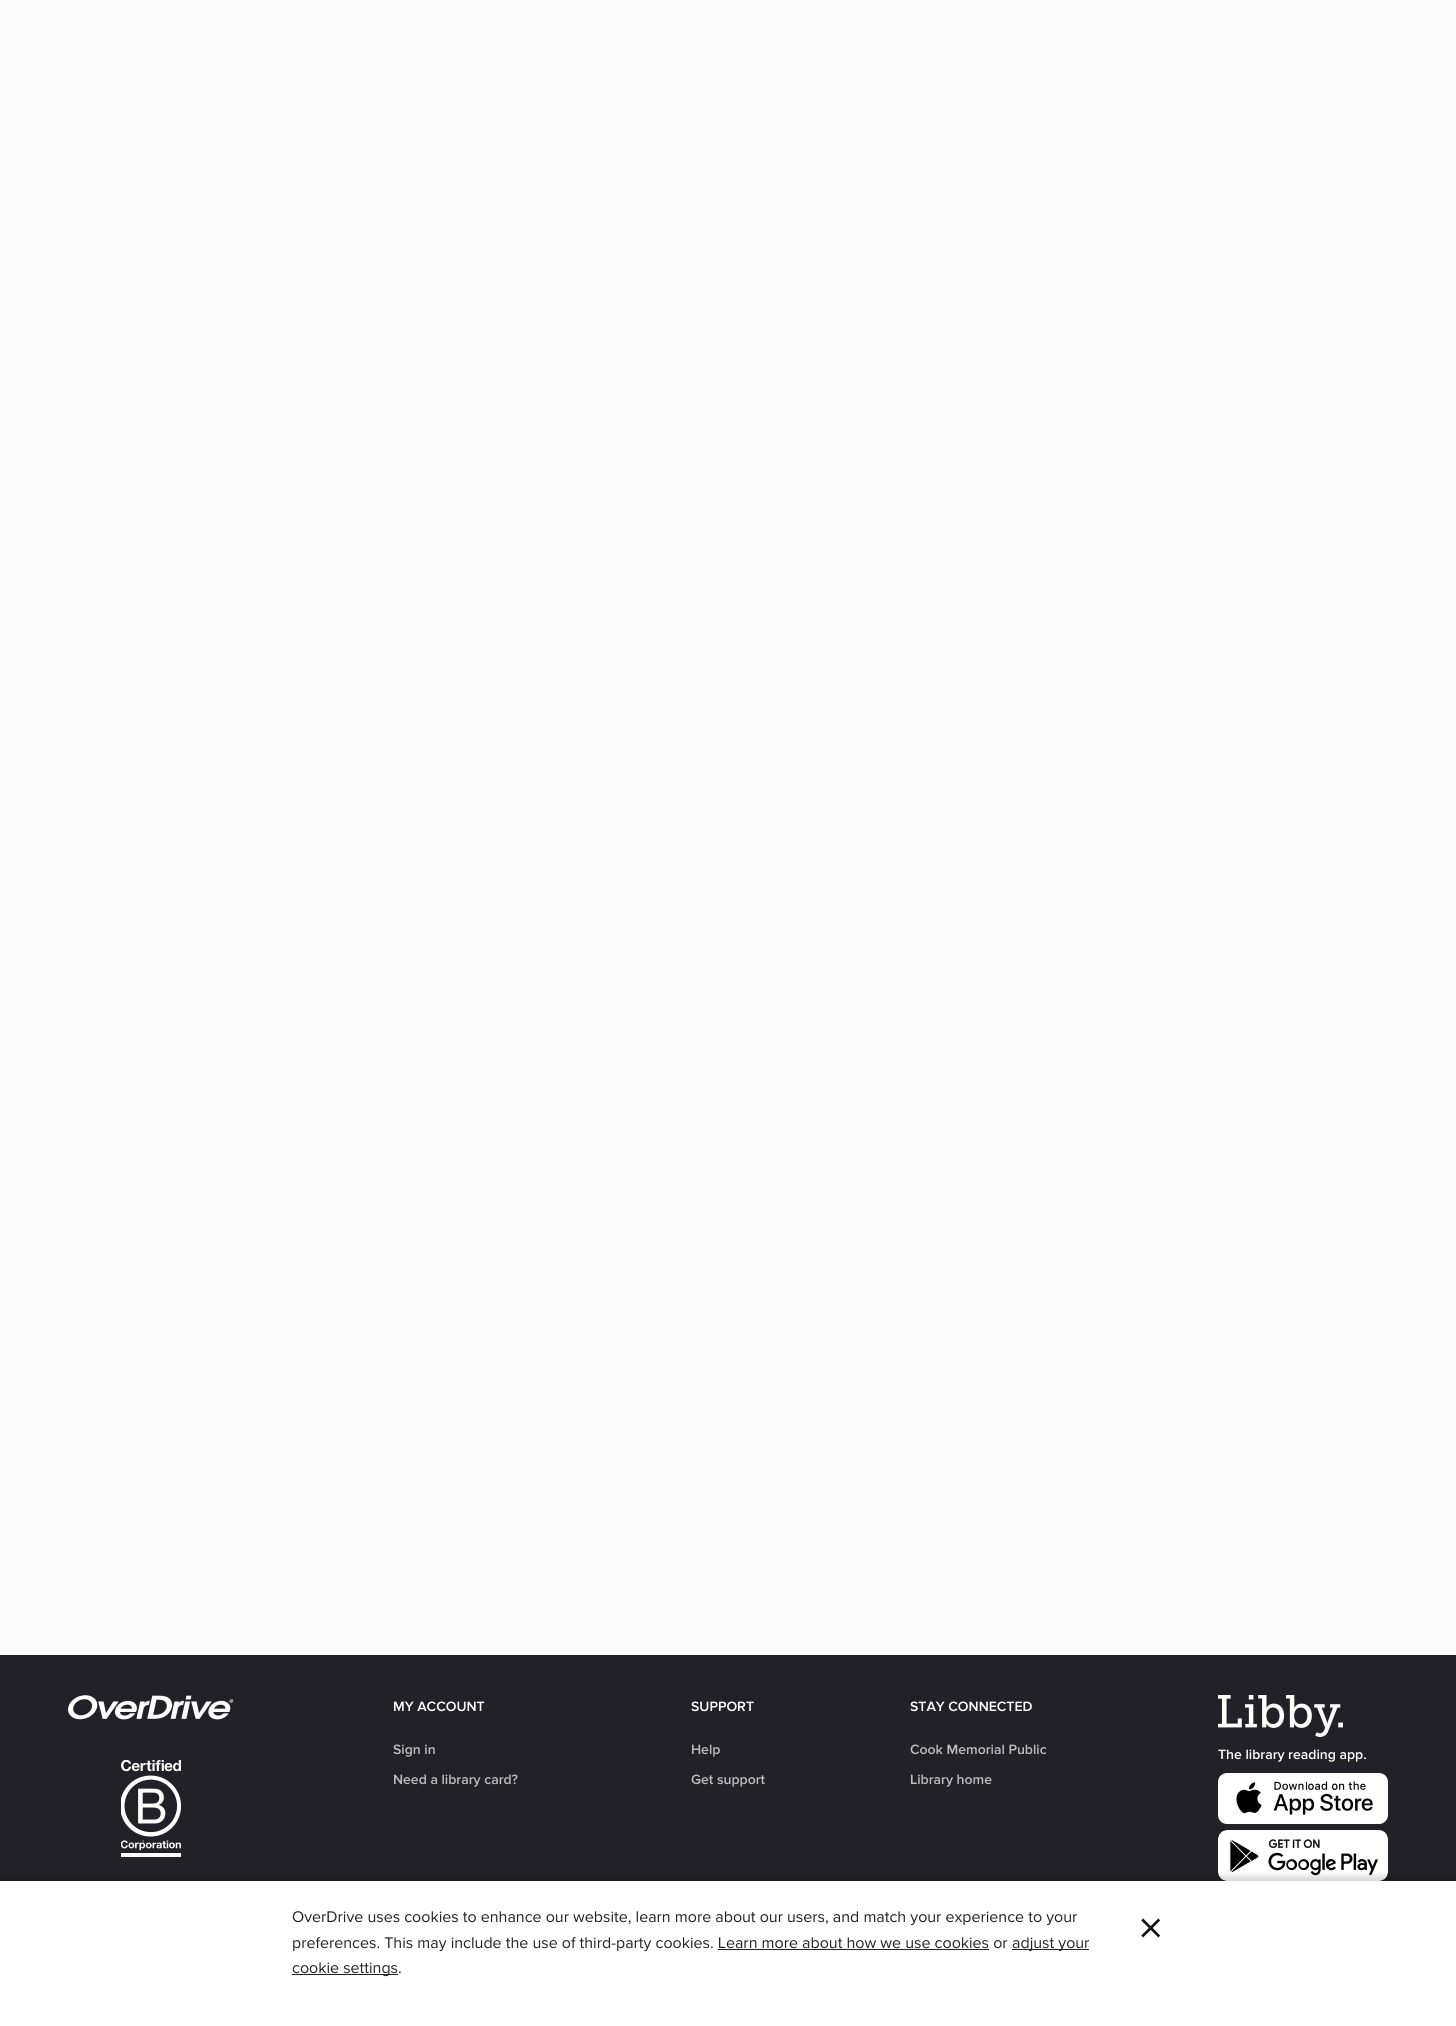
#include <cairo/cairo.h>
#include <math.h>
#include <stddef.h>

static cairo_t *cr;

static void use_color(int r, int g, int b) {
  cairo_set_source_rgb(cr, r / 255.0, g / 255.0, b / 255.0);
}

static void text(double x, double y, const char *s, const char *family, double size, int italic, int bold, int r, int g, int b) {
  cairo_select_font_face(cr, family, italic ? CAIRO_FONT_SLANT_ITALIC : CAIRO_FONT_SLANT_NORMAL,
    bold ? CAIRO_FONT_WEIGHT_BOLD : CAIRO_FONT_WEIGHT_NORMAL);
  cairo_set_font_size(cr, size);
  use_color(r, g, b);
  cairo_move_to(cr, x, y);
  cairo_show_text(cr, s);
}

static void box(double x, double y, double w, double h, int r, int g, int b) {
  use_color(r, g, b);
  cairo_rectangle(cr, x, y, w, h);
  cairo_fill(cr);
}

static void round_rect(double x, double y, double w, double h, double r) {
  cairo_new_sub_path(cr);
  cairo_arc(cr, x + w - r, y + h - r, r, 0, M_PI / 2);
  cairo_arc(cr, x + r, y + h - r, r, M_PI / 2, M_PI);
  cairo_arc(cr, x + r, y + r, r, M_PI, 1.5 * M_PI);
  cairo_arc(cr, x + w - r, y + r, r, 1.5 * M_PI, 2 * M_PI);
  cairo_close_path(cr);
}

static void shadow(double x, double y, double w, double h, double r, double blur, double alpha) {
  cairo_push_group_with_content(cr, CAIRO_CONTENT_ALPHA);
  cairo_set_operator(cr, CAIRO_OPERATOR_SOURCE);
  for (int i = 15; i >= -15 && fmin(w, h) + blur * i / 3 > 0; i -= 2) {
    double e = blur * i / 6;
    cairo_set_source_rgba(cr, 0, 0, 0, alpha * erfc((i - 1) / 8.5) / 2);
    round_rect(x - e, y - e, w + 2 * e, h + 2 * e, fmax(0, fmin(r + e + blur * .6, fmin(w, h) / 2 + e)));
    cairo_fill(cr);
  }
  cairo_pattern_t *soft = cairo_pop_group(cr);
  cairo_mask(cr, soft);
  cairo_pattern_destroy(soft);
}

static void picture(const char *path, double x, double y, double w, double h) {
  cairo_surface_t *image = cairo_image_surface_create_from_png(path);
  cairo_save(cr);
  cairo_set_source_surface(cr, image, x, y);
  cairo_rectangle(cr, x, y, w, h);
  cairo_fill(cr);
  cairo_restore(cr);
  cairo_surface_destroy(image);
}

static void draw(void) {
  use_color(250, 250, 250);
  cairo_paint(cr);
  box(0, 1655, 1456, 226, 33, 33, 39);
  picture("img_01.png", 68, 1695, 166, 25);
  picture("img_02.png", 121, 1760, 60, 97);
  picture("img_03.png", 1218, 1695, 125, 42);
  picture("img_04.png", 1218, 1773, 170, 51);
  picture("img_05.png", 1218, 1830, 170, 51);
  use_color(0, 0, 0);
  shadow(-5, 1876, 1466, 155, 0, 2.5, 0.15);
  box(0, 1881, 1456, 145, 255, 255, 255);
  box(718, 1949, 271, 1, 34, 34, 34);
  box(1012, 1949, 77, 1, 34, 34, 34);
  box(292, 1974, 106, 1, 34, 34, 34);
  text(393, 1711, "MY ACCOUNT", "Proxima Nova SemiBold", 14, 0, 0, 255, 255, 255);
  text(393, 1754, "Sign in", "Proxima Nova SemiBold", 14, 0, 0, 188, 188, 190);
  text(393, 1784, "Need a library card?", "Proxima Nova SemiBold", 14, 0, 0, 188, 188, 190);
  text(691, 1711, "SUPPORT", "Proxima Nova SemiBold", 14, 0, 0, 255, 255, 255);
  text(691, 1754, "Help", "Proxima Nova SemiBold", 14, 0, 0, 188, 188, 190);
  text(691, 1784, "Get support", "Proxima Nova SemiBold", 14, 0, 0, 188, 188, 190);
  text(910, 1711, "STAY CONNECTED", "Proxima Nova SemiBold", 14, 0, 0, 255, 255, 255);
  text(910, 1754, "Cook Memorial Public", "Proxima Nova SemiBold", 14, 0, 0, 188, 188, 190);
  text(910, 1784, "Library home", "Proxima Nova SemiBold", 14, 0, 0, 188, 188, 190);
  text(1218, 1759, "The library reading app.", "Proxima Nova SemiBold", 14, 0, 0, 255, 255, 255);
  text(292, 1922, "OverDrive uses cookies to enhance our website, learn more about our users, and match your experience to your", "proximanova", 16, 0, 0, 34, 34, 34);
  text(292, 1948, "preferences. This may include the use of third-party cookies. Learn more about how we use cookies or", "proximanova", 16, 0, 0, 34, 34, 34);
  text(1012, 1948, "adjust your", "proximanova", 16, 0, 0, 34, 34, 34);
  text(292, 1973, "cookie settings.", "proximanova", 16, 0, 0, 34, 34, 34);
  text(1138, 1945, "×", "proximanova", 51, 0, 0, 17, 17, 17);
}

int main(void) {
  cairo_surface_t *surface = cairo_image_surface_create(CAIRO_FORMAT_RGB24, 1456, 2026);
  cr = cairo_create(surface);
  cairo_font_options_t *options = cairo_font_options_create();
  cairo_font_options_set_hint_metrics(options, CAIRO_HINT_METRICS_OFF);
  cairo_font_options_set_hint_style(options, CAIRO_HINT_STYLE_NONE);
  cairo_set_font_options(cr, options);
  cairo_set_miter_limit(cr, 4);
  draw();
  cairo_surface_write_to_png(surface, "out.png");
  cairo_font_options_destroy(options);
  cairo_destroy(cr);
  cairo_surface_destroy(surface);
  return 0;
}
